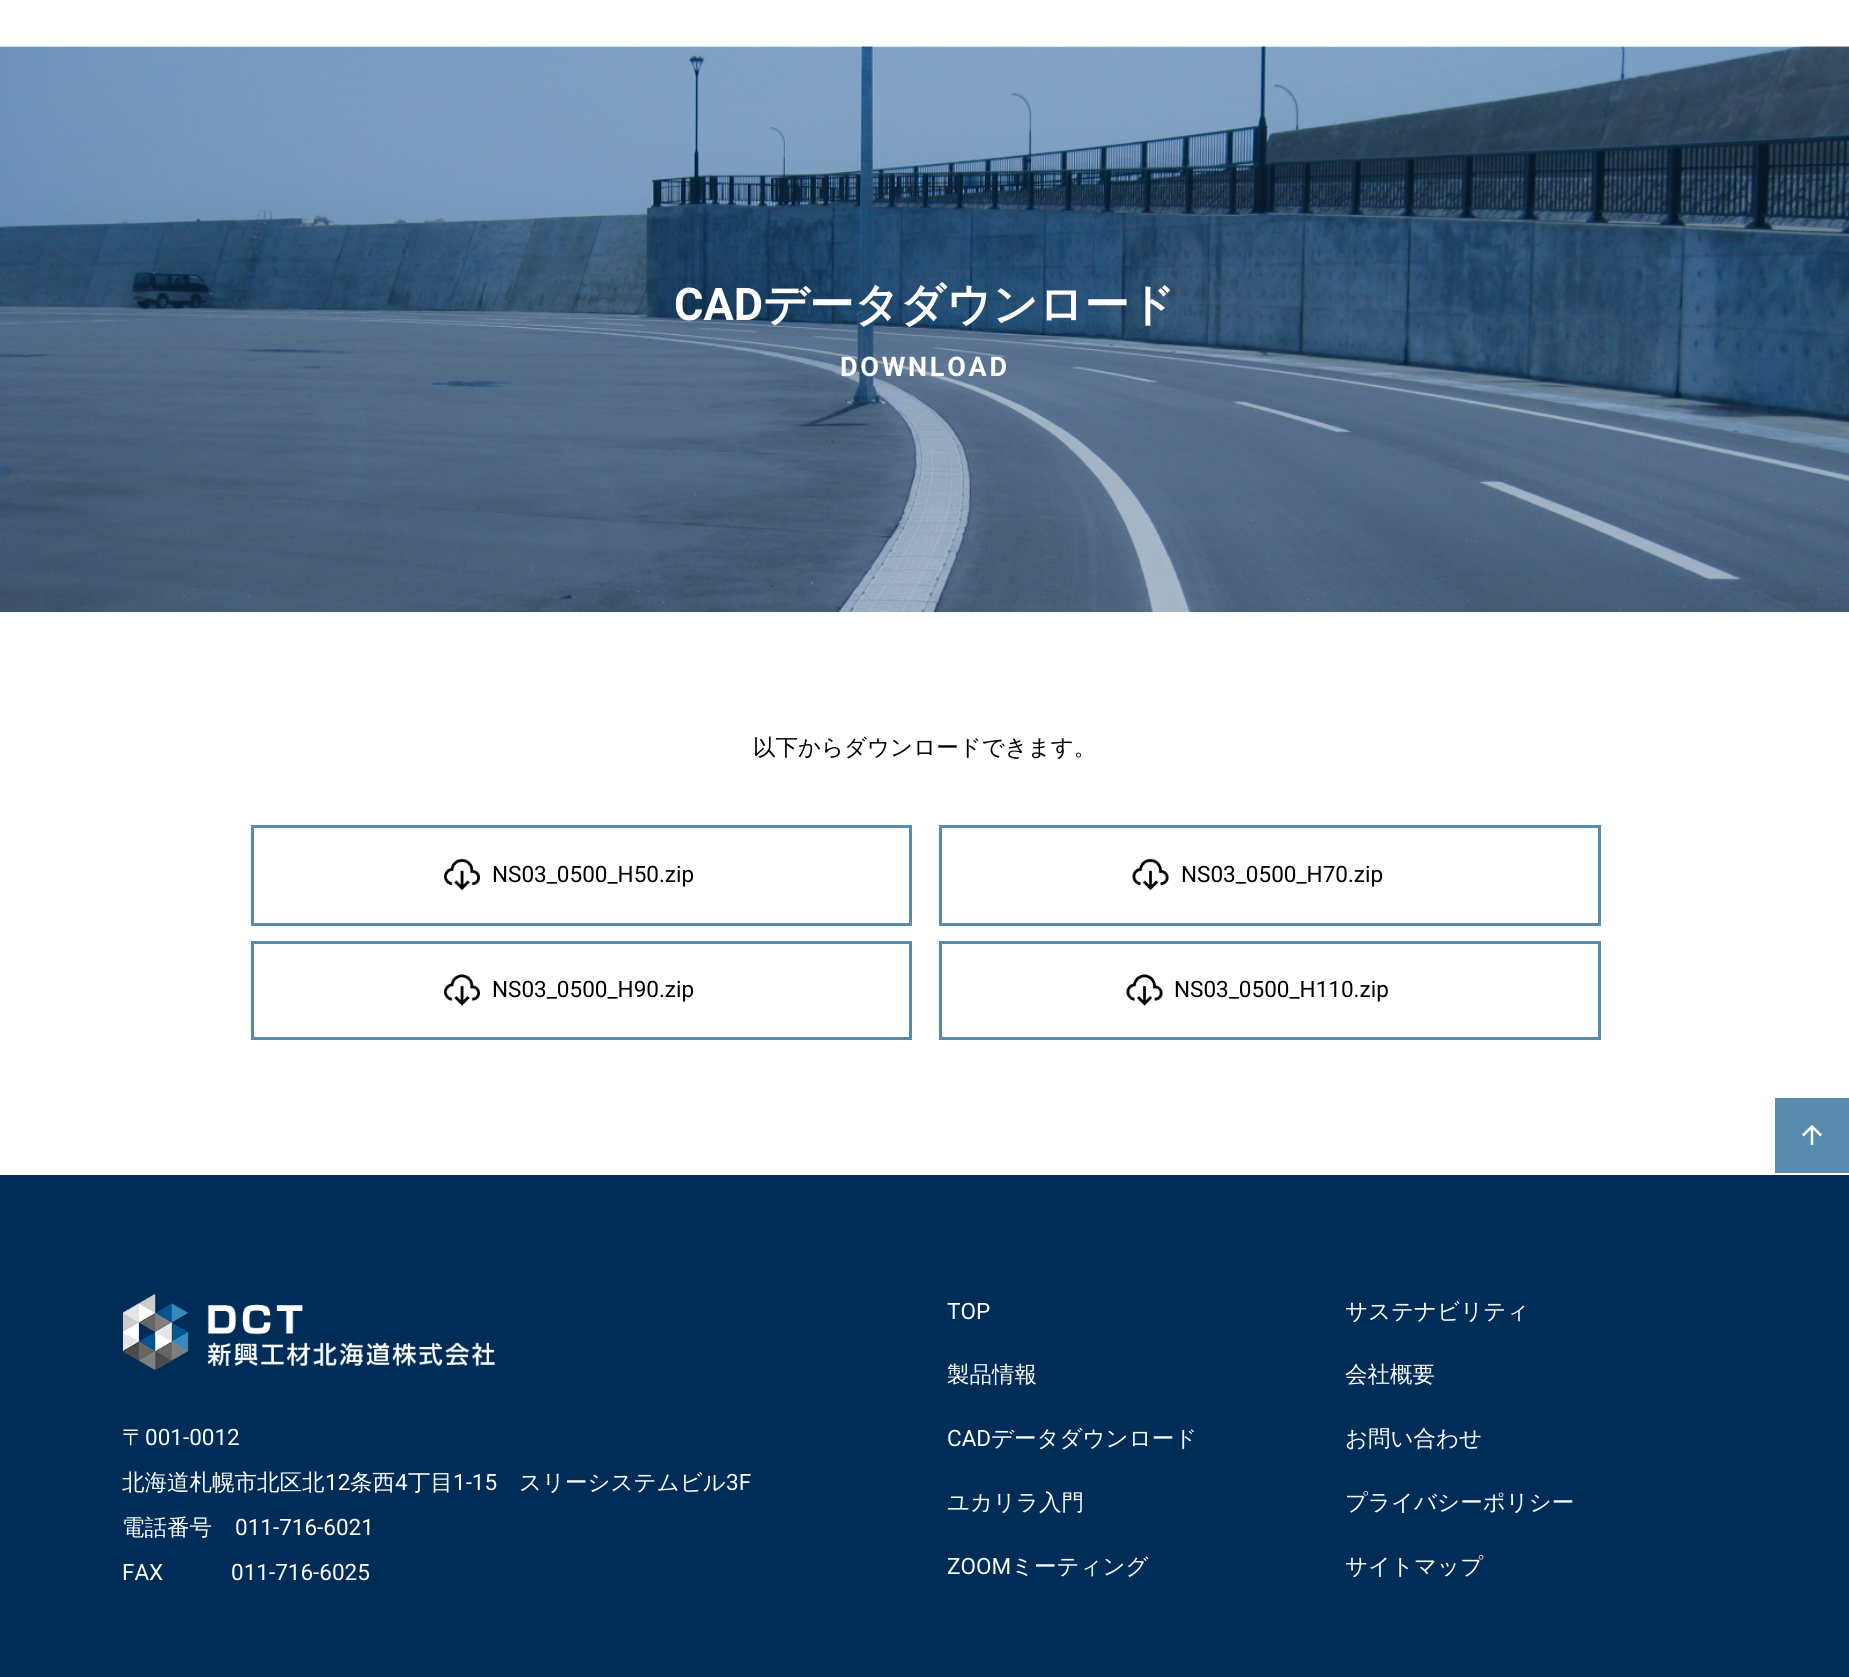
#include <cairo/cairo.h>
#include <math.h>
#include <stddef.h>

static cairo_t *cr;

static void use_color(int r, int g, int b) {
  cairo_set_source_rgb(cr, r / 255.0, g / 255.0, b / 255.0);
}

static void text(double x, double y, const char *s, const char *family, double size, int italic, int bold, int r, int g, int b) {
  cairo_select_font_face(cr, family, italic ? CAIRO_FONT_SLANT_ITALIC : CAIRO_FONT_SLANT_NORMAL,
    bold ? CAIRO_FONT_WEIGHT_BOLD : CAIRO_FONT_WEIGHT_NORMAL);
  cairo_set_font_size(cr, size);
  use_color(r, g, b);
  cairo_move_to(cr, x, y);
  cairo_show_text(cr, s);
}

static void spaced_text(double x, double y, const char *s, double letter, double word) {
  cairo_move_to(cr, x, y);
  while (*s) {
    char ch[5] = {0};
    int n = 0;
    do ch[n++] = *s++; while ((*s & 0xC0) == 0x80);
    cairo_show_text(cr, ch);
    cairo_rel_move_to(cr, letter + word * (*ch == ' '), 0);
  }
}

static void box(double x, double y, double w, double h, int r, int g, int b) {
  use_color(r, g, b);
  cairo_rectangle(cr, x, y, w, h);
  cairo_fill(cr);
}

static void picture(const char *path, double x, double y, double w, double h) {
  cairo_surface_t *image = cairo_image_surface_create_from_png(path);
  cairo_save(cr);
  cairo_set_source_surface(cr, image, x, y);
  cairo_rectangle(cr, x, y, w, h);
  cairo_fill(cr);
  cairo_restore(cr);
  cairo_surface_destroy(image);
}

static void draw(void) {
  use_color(255, 255, 255);
  cairo_paint(cr);
  picture("img_01.png", 0, 46, 1849, 566);
  cairo_rectangle(cr, 252.5, 826.5, 658, 98);
  use_color(88, 139, 174);
  cairo_set_line_width(cr, 3);
  cairo_stroke(cr);
  picture("img_02.png", 444, 858, 36, 33);
  cairo_rectangle(cr, 940.5, 826.5, 659, 98);
  cairo_stroke(cr);
  picture("img_03.png", 1132, 858, 37, 33);
  cairo_rectangle(cr, 252.5, 942.5, 658, 96);
  cairo_stroke(cr);
  picture("img_04.png", 444, 974, 36, 32);
  cairo_rectangle(cr, 940.5, 942.5, 659, 96);
  cairo_stroke(cr);
  picture("img_05.png", 1126, 974, 37, 32);
  box(1775, 1098, 74, 75, 88, 139, 174);
  picture("img_06.png", 1802, 1124, 20, 21);
  box(0, 1175, 1849, 502, 0, 44, 88);
  picture("img_07.png", 123, 1294, 372, 76);
  text(674, 320, "CAD", "Roboto", 45, 0, 1, 255, 255, 255);
  text(763, 320, "データダウンロード", "WenQuanYi Zen Hei", 45, 0, 1, 255, 255, 255);
  cairo_select_font_face(cr, "Roboto", CAIRO_FONT_SLANT_NORMAL, CAIRO_FONT_WEIGHT_BOLD);
  cairo_set_font_size(cr, 27);
  spaced_text(840, 376, "DOWNLOAD", 2.75, 0);
  text(753, 755, "以下からダウンロードできます。", "WenQuanYi Zen Hei Medium", 22.5, 0, 0, 0, 0, 0);
  text(492, 882, "NS03_0500_H50.zip", "Roboto", 22.5, 0, 0, 0, 0, 0);
  text(1181, 882, "NS03_0500_H70.zip", "Roboto", 22.5, 0, 0, 0, 0, 0);
  text(492, 997, "NS03_0500_H90.zip", "Roboto", 22.5, 0, 0, 0, 0, 0);
  text(1174, 997, "NS03_0500_H110.zip", "Roboto", 22.5, 0, 0, 0, 0, 0);
  text(122, 1445, "〒", "WenQuanYi Zen Hei Medium", 22.5, 0, 0, 255, 255, 255);
  text(145, 1445, "001-0012", "Roboto", 22.5, 0, 0, 255, 255, 255);
  text(122, 1490, "北海道札幌市北区北", "WenQuanYi Zen Hei Medium", 22.5, 0, 0, 255, 255, 255);
  text(325, 1490, "12", "Roboto", 22.5, 0, 0, 255, 255, 255);
  text(350, 1490, "条西", "WenQuanYi Zen Hei Medium", 22.5, 0, 0, 255, 255, 255);
  text(395, 1490, "4", "Roboto", 22.5, 0, 0, 255, 255, 255);
  text(408, 1490, "丁目", "WenQuanYi Zen Hei Medium", 22.5, 0, 0, 255, 255, 255);
  text(453, 1490, "1-15", "Roboto", 22.5, 0, 0, 255, 255, 255);
  text(519, 1490, "スリーシステムビル", "WenQuanYi Zen Hei Medium", 22.5, 0, 0, 255, 255, 255);
  text(726, 1490, "3F", "Roboto", 22.5, 0, 0, 255, 255, 255);
  text(122, 1535, "電話番号", "WenQuanYi Zen Hei Medium", 22.5, 0, 0, 255, 255, 255);
  text(235, 1535, "011-716-6021", "Roboto", 22.5, 0, 0, 255, 255, 255);
  text(122, 1580, "FAX", "Roboto", 22.5, 0, 0, 255, 255, 255);
  text(231, 1580, "011-716-6025", "Roboto", 22.5, 0, 0, 255, 255, 255);
  text(947, 1319, "TOP", "Roboto", 22.5, 0, 0, 255, 255, 255);
  text(947, 1382, "製品情報", "WenQuanYi Zen Hei Medium", 22.5, 0, 0, 255, 255, 255);
  text(947, 1446, "CAD", "Roboto", 22.5, 0, 0, 255, 255, 255);
  text(991, 1446, "データダウンロード", "WenQuanYi Zen Hei Medium", 22.5, 0, 0, 255, 255, 255);
  text(947, 1510, "ユカリラ入門", "WenQuanYi Zen Hei Medium", 22.5, 0, 0, 255, 255, 255);
  text(947, 1574, "ZOOM", "Roboto", 22.5, 0, 0, 255, 255, 255);
  text(1011, 1574, "ミーティング", "WenQuanYi Zen Hei Medium", 22.5, 0, 0, 255, 255, 255);
  text(1345, 1319, "サステナビリティ", "WenQuanYi Zen Hei Medium", 22.5, 0, 0, 255, 255, 255);
  text(1345, 1382, "会社概要", "WenQuanYi Zen Hei Medium", 22.5, 0, 0, 255, 255, 255);
  text(1345, 1446, "お問い合わせ", "WenQuanYi Zen Hei Medium", 22.5, 0, 0, 255, 255, 255);
  text(1345, 1510, "プライバシーポリシー", "WenQuanYi Zen Hei Medium", 22.5, 0, 0, 255, 255, 255);
  text(1345, 1574, "サイトマップ", "WenQuanYi Zen Hei Medium", 22.5, 0, 0, 255, 255, 255);
}

int main(void) {
  cairo_surface_t *surface = cairo_image_surface_create(CAIRO_FORMAT_RGB24, 1849, 1677);
  cr = cairo_create(surface);
  cairo_font_options_t *options = cairo_font_options_create();
  cairo_font_options_set_hint_metrics(options, CAIRO_HINT_METRICS_OFF);
  cairo_font_options_set_hint_style(options, CAIRO_HINT_STYLE_NONE);
  cairo_set_font_options(cr, options);
  cairo_set_miter_limit(cr, 4);
  draw();
  cairo_surface_write_to_png(surface, "out.png");
  cairo_font_options_destroy(options);
  cairo_destroy(cr);
  cairo_surface_destroy(surface);
  return 0;
}
